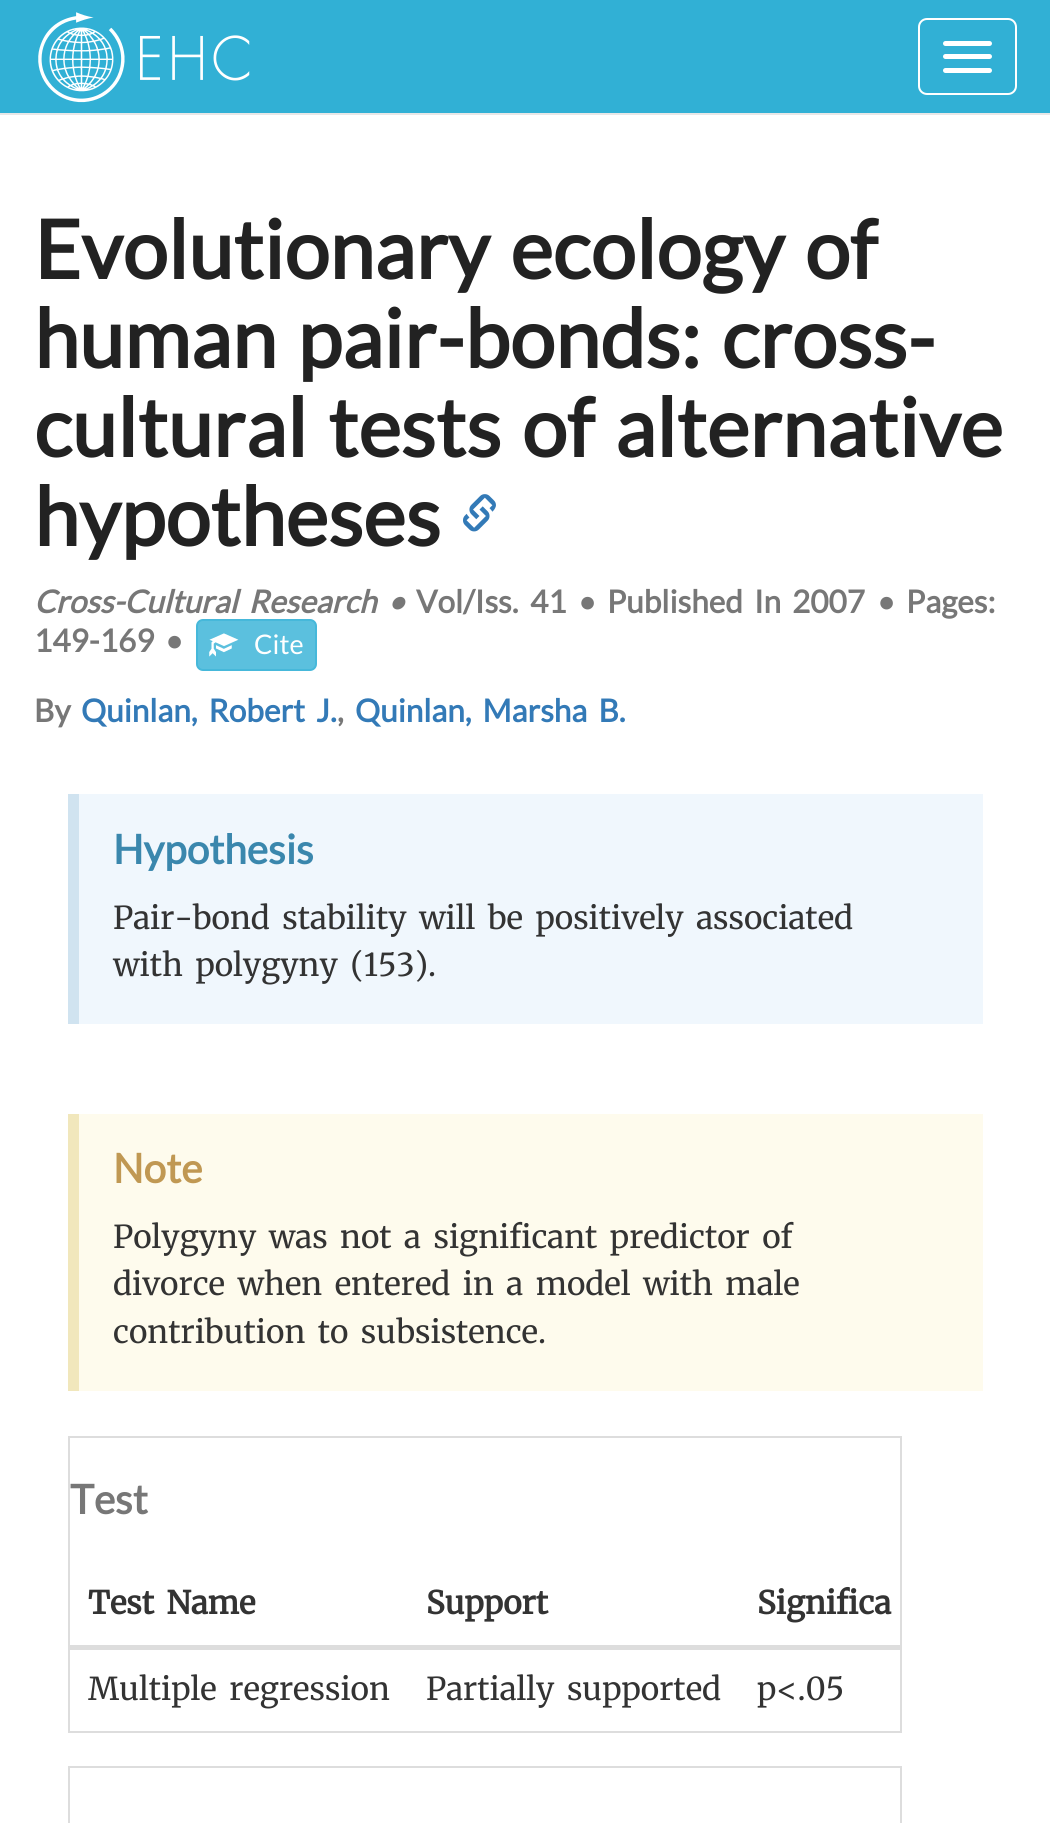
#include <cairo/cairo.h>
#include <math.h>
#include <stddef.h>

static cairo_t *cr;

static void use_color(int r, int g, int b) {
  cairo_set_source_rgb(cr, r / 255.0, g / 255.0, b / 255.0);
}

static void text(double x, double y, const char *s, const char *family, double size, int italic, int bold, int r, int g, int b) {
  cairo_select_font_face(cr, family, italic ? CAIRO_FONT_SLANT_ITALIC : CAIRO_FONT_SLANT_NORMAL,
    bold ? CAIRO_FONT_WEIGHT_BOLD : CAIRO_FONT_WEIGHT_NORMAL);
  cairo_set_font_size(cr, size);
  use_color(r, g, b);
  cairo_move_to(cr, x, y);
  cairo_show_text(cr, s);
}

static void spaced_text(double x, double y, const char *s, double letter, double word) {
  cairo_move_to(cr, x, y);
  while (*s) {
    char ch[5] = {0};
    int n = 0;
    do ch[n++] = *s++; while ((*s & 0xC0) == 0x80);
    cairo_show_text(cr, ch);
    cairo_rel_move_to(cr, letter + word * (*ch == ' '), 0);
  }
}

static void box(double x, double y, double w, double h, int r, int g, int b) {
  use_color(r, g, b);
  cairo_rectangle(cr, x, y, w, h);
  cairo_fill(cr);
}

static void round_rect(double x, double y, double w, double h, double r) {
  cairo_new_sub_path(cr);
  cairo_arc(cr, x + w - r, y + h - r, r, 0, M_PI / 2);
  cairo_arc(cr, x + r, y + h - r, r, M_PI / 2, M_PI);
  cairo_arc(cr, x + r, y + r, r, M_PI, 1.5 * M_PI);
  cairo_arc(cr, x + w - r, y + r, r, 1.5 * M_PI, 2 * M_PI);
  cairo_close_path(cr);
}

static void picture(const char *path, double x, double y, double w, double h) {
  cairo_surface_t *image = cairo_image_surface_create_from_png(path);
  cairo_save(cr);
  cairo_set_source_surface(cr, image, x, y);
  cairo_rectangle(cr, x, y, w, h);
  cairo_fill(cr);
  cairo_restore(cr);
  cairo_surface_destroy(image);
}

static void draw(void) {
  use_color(255, 255, 255);
  cairo_paint(cr);
  box(0, 0, 1050, 113, 49, 176, 213);
  box(0, 113, 1050, 2, 231, 231, 231);
  picture("img_01.png", 38, 12, 212, 91);
  round_rect(919, 19, 97, 75, 8);
  use_color(255, 255, 255);
  cairo_stroke(cr);
  round_rect(943, 41, 49, 5, 2.5);
  cairo_fill(cr);
  round_rect(943, 54, 49, 5, 2.5);
  cairo_fill(cr);
  round_rect(943, 68, 49, 5, 2.5);
  cairo_fill(cr);
  picture("img_02.png", 463, 494, 33, 38);
  use_color(91, 192, 222);
  round_rect(197, 620, 119, 50, 6);
  cairo_fill_preserve(cr);
  use_color(70, 184, 218);
  cairo_stroke(cr);
  picture("img_03.png", 209, 633, 30, 24);
  box(79, 794, 904, 230, 240, 247, 253);
  box(68, 794, 11, 230, 208, 227, 240);
  box(79, 1114, 904, 277, 254, 251, 237);
  box(68, 1114, 11, 277, 241, 231, 188);
  cairo_rectangle(cr, 69, 1437, 832, 295);
  use_color(221, 221, 221);
  cairo_stroke(cr);
  box(70, 1645, 830, 5, 221, 221, 221);
  cairo_rectangle(cr, 69, 1767, 832, 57);
  cairo_stroke(cr);
  cairo_select_font_face(cr, "Lato", CAIRO_FONT_SLANT_NORMAL, CAIRO_FONT_WEIGHT_BOLD);
  cairo_set_font_size(cr, 81);
  use_color(34, 34, 34);
  spaced_text(34, 279, "Evolutionary ecology of", 0, 5);
  spaced_text(34, 368, "human pair-bonds: cross-", 0, 5);
  spaced_text(34, 457, "cultural tests of alternative", 0, 5);
  text(34, 546, "hypotheses", "Lato", 81, 0, 1, 34, 34, 34);
  cairo_select_font_face(cr, "Lato", CAIRO_FONT_SLANT_ITALIC, CAIRO_FONT_WEIGHT_BOLD);
  cairo_set_font_size(cr, 31.5);
  use_color(119, 119, 119);
  spaced_text(34, 613, "Cross-Cultural Research", 0, 5);
  text(387, 613, "•", "Lato", 31.5, 1, 1, 119, 119, 119);
  text(416, 613, "Vol/Iss.", "Lato", 31.5, 0, 1, 119, 119, 119);
  text(530, 613, "41", "Lato", 31.5, 0, 1, 119, 119, 119);
  text(578, 613, "•", "Lato", 31.5, 0, 1, 119, 119, 119);
  spaced_text(607, 613, "Published In", 0, 5);
  text(792, 613, "2007", "Lato", 31.5, 0, 1, 119, 119, 119);
  text(877, 613, "•", "Lato", 31.5, 0, 1, 119, 119, 119);
  text(906, 613, "Pages:", "Lato", 31.5, 0, 1, 119, 119, 119);
  text(34, 652, "149-169", "Lato", 31.5, 0, 1, 119, 119, 119);
  text(165, 652, "•", "Lato", 31.5, 0, 1, 119, 119, 119);
  text(254, 654, "Cite", "Lato", 27, 0, 0, 255, 255, 255);
  text(34, 722, "By", "Lato", 31.5, 0, 1, 119, 119, 119);
  use_color(51, 122, 183);
  spaced_text(81, 722, "Quinlan, Robert J.", 0, 5);
  text(337, 722, ",", "Lato", 31.5, 0, 1, 119, 119, 119);
  use_color(51, 122, 183);
  spaced_text(355, 722, "Quinlan, Marsha B.", 0, 5);
  text(113, 864, "Hypothesis", "Lato", 40.5, 0, 1, 58, 135, 173);
  cairo_select_font_face(cr, "Merriweather Light", CAIRO_FONT_SLANT_NORMAL, CAIRO_FONT_WEIGHT_NORMAL);
  cairo_set_font_size(cr, 31.5);
  use_color(51, 51, 51);
  spaced_text(113, 929, "Pair-bond stability will be positively associated", 0, 5);
  spaced_text(113, 976, "with polygyny (153).", 0, 5);
  text(113, 1183, "Note", "Lato", 40.5, 0, 1, 192, 152, 83);
  cairo_select_font_face(cr, "Merriweather Light", CAIRO_FONT_SLANT_NORMAL, CAIRO_FONT_WEIGHT_NORMAL);
  cairo_set_font_size(cr, 31.5);
  use_color(51, 51, 51);
  spaced_text(113, 1248, "Polygyny was not a significant predictor of", 0, 5);
  spaced_text(113, 1295, "divorce when entered in a model with male", 0, 5);
  spaced_text(113, 1343, "contribution to subsistence.", 0, 5);
  text(70, 1514, "Test", "Lato", 40.5, 0, 1, 119, 119, 119);
  cairo_select_font_face(cr, "Merriweather", CAIRO_FONT_SLANT_NORMAL, CAIRO_FONT_WEIGHT_BOLD);
  cairo_set_font_size(cr, 31.5);
  use_color(51, 51, 51);
  spaced_text(88, 1614, "Test Name", 0, 5);
  text(426, 1614, "Support", "Merriweather", 31.5, 0, 1, 51, 51, 51);
  text(757, 1614, "Significa", "Merriweather", 31.5, 0, 1, 51, 51, 51);
  cairo_select_font_face(cr, "Merriweather Light", CAIRO_FONT_SLANT_NORMAL, CAIRO_FONT_WEIGHT_NORMAL);
  spaced_text(88, 1700, "Multiple regression", 0, 5);
  spaced_text(426, 1700, "Partially supported", 0, 5);
  text(757, 1700, "p<.05", "Merriweather Light", 31.5, 0, 0, 51, 51, 51);
}

int main(void) {
  cairo_surface_t *surface = cairo_image_surface_create(CAIRO_FORMAT_RGB24, 1050, 1823);
  cr = cairo_create(surface);
  cairo_font_options_t *options = cairo_font_options_create();
  cairo_font_options_set_hint_metrics(options, CAIRO_HINT_METRICS_OFF);
  cairo_font_options_set_hint_style(options, CAIRO_HINT_STYLE_NONE);
  cairo_set_font_options(cr, options);
  cairo_set_miter_limit(cr, 4);
  draw();
  cairo_surface_write_to_png(surface, "out.png");
  cairo_font_options_destroy(options);
  cairo_destroy(cr);
  cairo_surface_destroy(surface);
  return 0;
}
